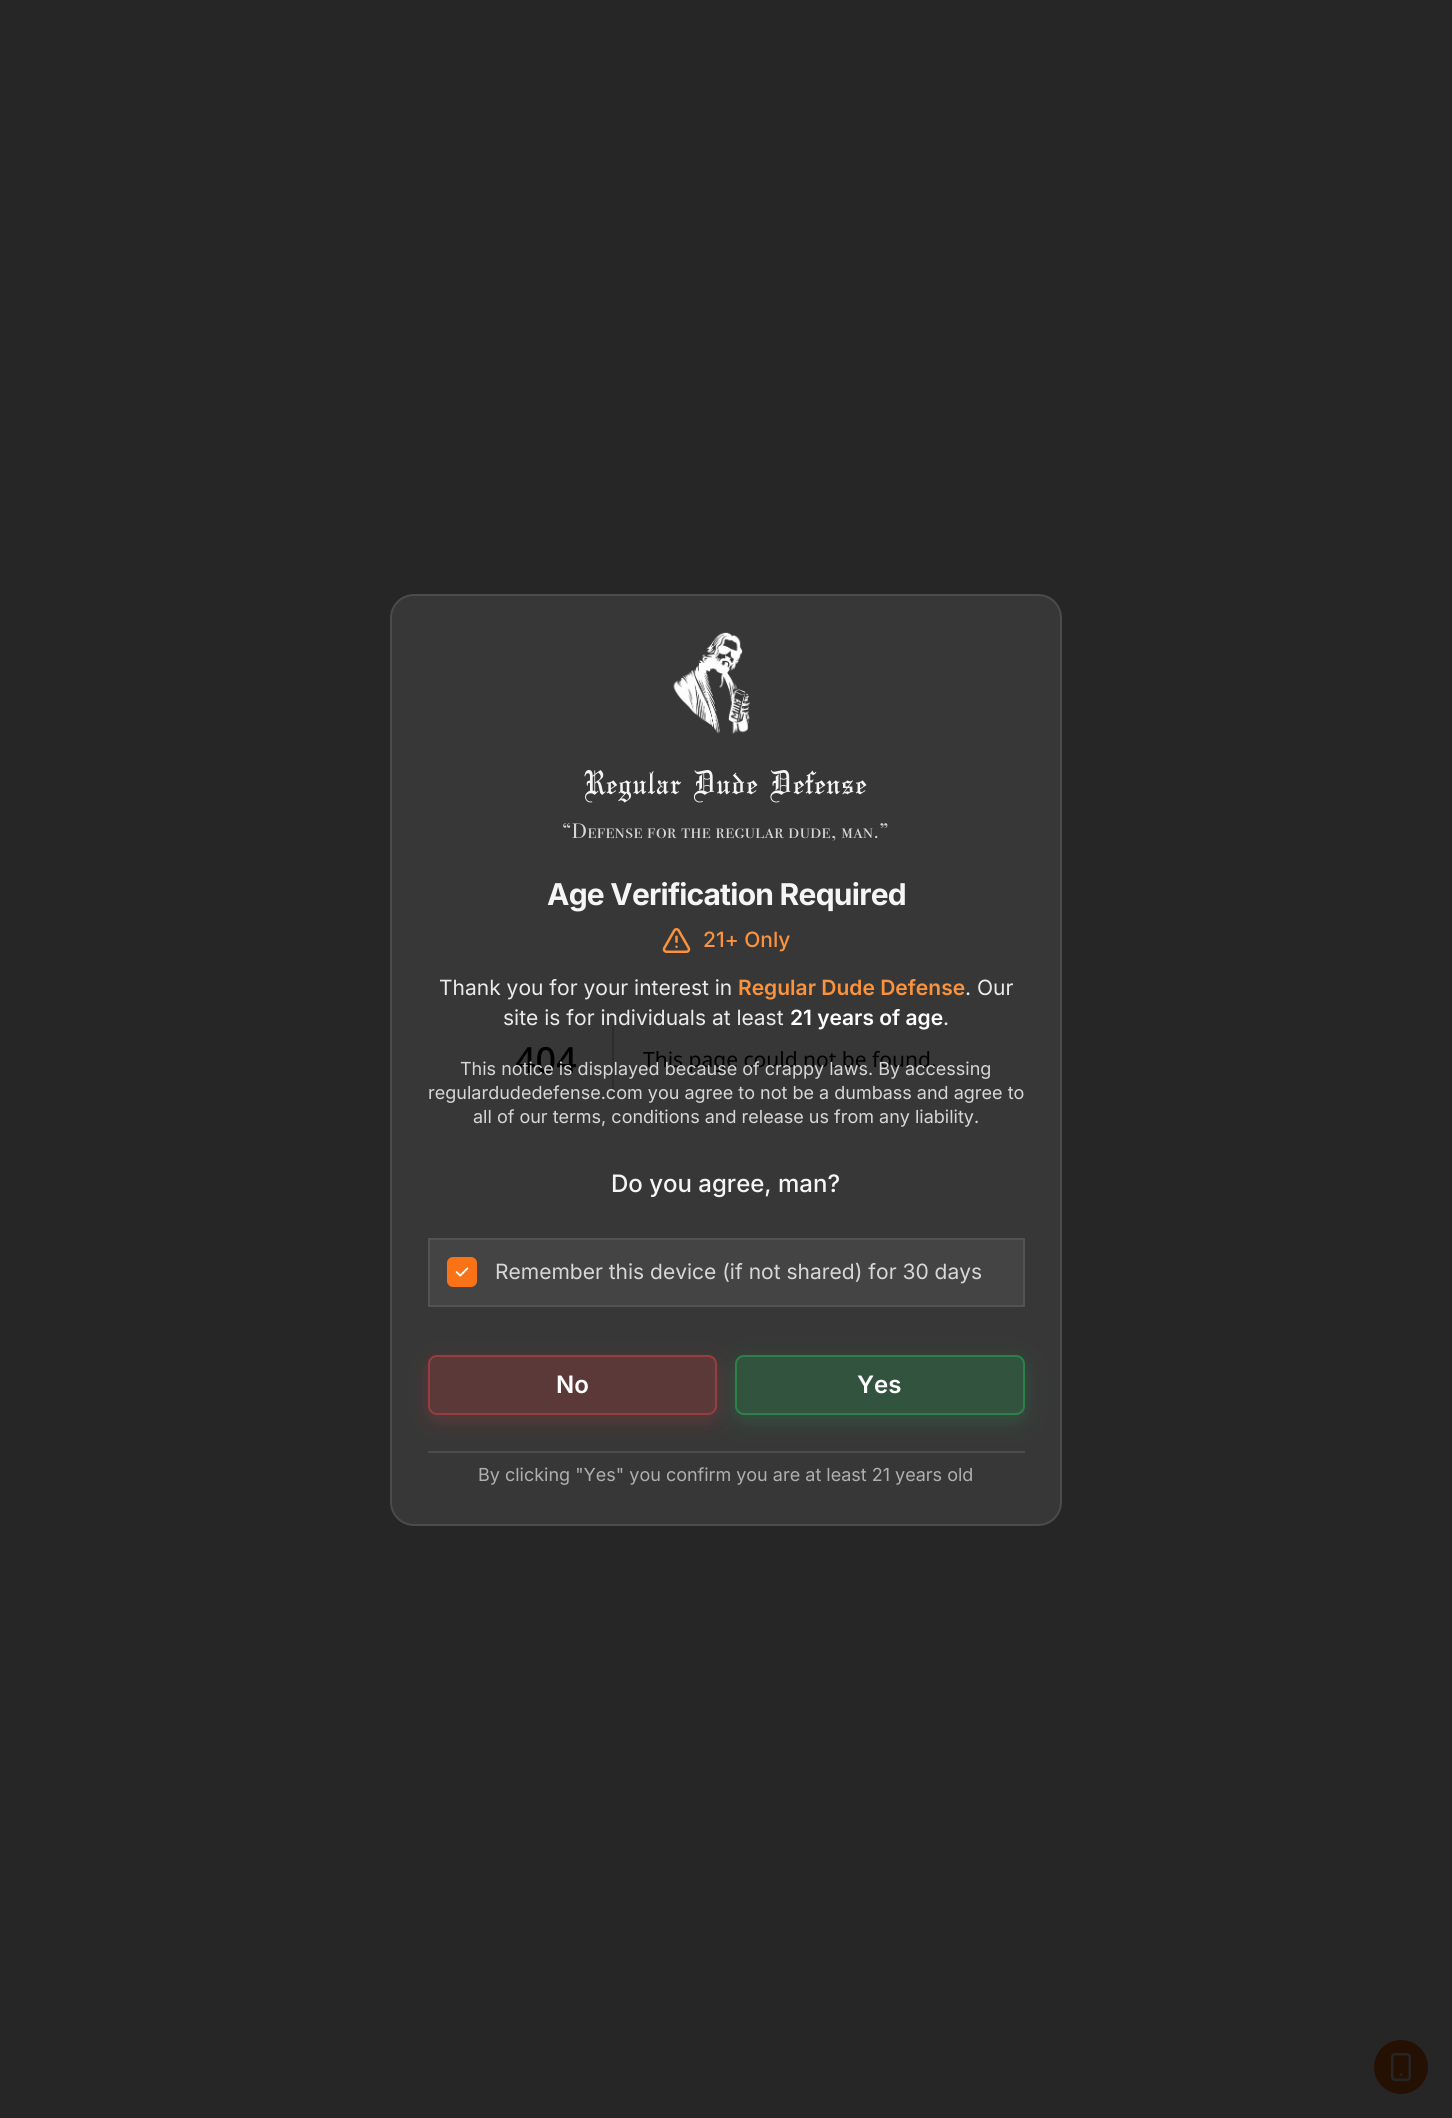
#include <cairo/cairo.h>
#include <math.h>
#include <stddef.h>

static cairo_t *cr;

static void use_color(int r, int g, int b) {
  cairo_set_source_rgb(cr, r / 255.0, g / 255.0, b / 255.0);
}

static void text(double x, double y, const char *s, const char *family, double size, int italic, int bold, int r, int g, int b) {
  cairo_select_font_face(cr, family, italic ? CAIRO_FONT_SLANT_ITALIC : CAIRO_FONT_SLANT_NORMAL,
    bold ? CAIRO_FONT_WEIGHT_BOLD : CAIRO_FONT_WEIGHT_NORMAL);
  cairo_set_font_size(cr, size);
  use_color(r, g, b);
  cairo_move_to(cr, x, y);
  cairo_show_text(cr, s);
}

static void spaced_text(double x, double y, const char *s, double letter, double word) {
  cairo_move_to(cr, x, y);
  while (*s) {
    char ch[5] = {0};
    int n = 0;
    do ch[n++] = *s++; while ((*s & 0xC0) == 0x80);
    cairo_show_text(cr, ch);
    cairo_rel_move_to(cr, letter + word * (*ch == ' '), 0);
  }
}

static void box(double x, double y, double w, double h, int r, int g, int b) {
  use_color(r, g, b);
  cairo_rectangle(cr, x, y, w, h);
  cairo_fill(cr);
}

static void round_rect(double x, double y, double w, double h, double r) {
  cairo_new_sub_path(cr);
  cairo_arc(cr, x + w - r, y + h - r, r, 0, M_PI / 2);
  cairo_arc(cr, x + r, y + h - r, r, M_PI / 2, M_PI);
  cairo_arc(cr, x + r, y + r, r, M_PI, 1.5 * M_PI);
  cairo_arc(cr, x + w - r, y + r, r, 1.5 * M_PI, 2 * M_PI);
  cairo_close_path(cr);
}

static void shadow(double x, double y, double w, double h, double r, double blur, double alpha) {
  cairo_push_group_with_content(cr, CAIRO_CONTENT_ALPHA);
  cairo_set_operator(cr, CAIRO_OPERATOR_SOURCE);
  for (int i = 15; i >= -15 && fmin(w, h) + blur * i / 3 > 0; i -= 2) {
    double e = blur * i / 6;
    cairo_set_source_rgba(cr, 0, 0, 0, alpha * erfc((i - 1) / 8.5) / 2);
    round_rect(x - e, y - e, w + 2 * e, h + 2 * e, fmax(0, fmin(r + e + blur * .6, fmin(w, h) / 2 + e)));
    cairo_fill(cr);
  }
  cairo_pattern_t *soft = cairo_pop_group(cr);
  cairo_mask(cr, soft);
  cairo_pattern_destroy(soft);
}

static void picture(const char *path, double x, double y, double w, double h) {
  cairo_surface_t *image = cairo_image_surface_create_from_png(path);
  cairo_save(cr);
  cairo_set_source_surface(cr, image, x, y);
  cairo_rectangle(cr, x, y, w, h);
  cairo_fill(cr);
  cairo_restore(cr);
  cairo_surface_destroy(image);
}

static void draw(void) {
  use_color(38, 38, 38);
  cairo_paint(cr);
  box(612, 1023, 2, 74, 27, 27, 27);
  cairo_set_source_rgba(cr, 1, 1, 1, 0.08);
  round_rect(390, 594, 672, 932, 24);
  cairo_fill(cr);
  round_rect(391, 595, 670, 930, 23);
  cairo_set_source_rgba(cr, 1, 1, 1, 0.1);
  cairo_stroke(cr);
  picture("img_01.png", 673, 632, 77, 102);
  picture("img_02.png", 662, 928, 29, 25);
  use_color(68, 68, 68);
  cairo_rectangle(cr, 429, 1239, 595, 67);
  cairo_fill_preserve(cr);
  use_color(83, 83, 83);
  cairo_stroke(cr);
  use_color(249, 115, 22);
  round_rect(448.5, 1258.5, 27, 27, 4.5);
  cairo_fill_preserve(cr);
  cairo_set_line_width(cr, 3);
  cairo_stroke(cr);
  picture("img_03.png", 455, 1267, 14, 10);
  box(428, 1451, 597, 2, 76, 76, 76);
  cairo_save(cr);
  cairo_set_fill_rule(cr, CAIRO_FILL_RULE_EVEN_ODD);
  cairo_new_path(cr);
  cairo_move_to(cr, 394, 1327);
  cairo_line_to(cr, 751, 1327);
  cairo_line_to(cr, 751, 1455);
  cairo_line_to(cr, 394, 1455);
  cairo_close_path(cr);
  cairo_move_to(cr, 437, 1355);
  cairo_line_to(cr, 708, 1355);
  cairo_curve_to(cr, 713, 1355, 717, 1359, 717, 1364);
  cairo_line_to(cr, 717, 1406);
  cairo_curve_to(cr, 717, 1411, 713, 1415, 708, 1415);
  cairo_line_to(cr, 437, 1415);
  cairo_curve_to(cr, 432, 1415, 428, 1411, 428, 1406);
  cairo_line_to(cr, 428, 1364);
  cairo_curve_to(cr, 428, 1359, 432, 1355, 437, 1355);
  cairo_close_path(cr);
  cairo_clip(cr);
  use_color(239, 68, 68);
  shadow(428, 1361, 289, 60, 9, 11, 0.2);
  cairo_restore(cr);
  cairo_set_source_rgba(cr, 0.937, 0.267, 0.267, 0.2);
  round_rect(428, 1355, 289, 60, 9);
  cairo_fill(cr);
  round_rect(429, 1356, 287, 58, 8);
  cairo_set_source_rgba(cr, 0.937, 0.267, 0.267, 0.4);
  cairo_set_line_width(cr, 2);
  cairo_stroke(cr);
  cairo_save(cr);
  cairo_set_fill_rule(cr, CAIRO_FILL_RULE_EVEN_ODD);
  cairo_new_path(cr);
  cairo_move_to(cr, 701, 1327);
  cairo_line_to(cr, 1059, 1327);
  cairo_line_to(cr, 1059, 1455);
  cairo_line_to(cr, 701, 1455);
  cairo_close_path(cr);
  cairo_move_to(cr, 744, 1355);
  cairo_line_to(cr, 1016, 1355);
  cairo_curve_to(cr, 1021, 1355, 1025, 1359, 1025, 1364);
  cairo_line_to(cr, 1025, 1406);
  cairo_curve_to(cr, 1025, 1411, 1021, 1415, 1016, 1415);
  cairo_line_to(cr, 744, 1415);
  cairo_curve_to(cr, 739, 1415, 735, 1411, 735, 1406);
  cairo_line_to(cr, 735, 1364);
  cairo_curve_to(cr, 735, 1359, 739, 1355, 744, 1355);
  cairo_close_path(cr);
  cairo_clip(cr);
  use_color(34, 197, 94);
  shadow(735, 1361, 290, 60, 9, 11, 0.2);
  cairo_restore(cr);
  cairo_set_source_rgba(cr, 0.133, 0.773, 0.369, 0.2);
  round_rect(735, 1355, 290, 60, 9);
  cairo_fill(cr);
  round_rect(736, 1356, 288, 58, 8);
  cairo_set_source_rgba(cr, 0.133, 0.773, 0.369, 0.4);
  cairo_stroke(cr);
  use_color(37, 17, 3);
  cairo_arc(cr, 1401, 2067, 27, 0, 2 * M_PI);
  cairo_fill(cr);
  round_rect(1392.25, 2054.25, 17.5, 25.5, 2.75);
  use_color(38, 38, 38);
  cairo_set_line_width(cr, 2.5);
  cairo_stroke(cr);
  cairo_new_path(cr);
  cairo_move_to(cr, 1401, 2074.5);
  cairo_line_to(cr, 1401, 2074.5);
  cairo_set_line_cap(cr, CAIRO_LINE_CAP_ROUND);
  cairo_set_line_join(cr, CAIRO_LINE_JOIN_ROUND);
  cairo_stroke(cr);
  cairo_select_font_face(cr, "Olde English", CAIRO_FONT_SLANT_NORMAL, CAIRO_FONT_WEIGHT_NORMAL);
  cairo_set_font_size(cr, 36);
  use_color(245, 245, 245);
  spaced_text(584, 794, "Regular Dude Defense", 0.9, 0);
  cairo_select_font_face(cr, "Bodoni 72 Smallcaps", CAIRO_FONT_SLANT_NORMAL, CAIRO_FONT_WEIGHT_NORMAL);
  cairo_set_font_size(cr, 21);
  use_color(215, 215, 215);
  spaced_text(562, 838, "“Defense for the regular dude, man.”", 0.5, 0);
  cairo_select_font_face(cr, "Inter", CAIRO_FONT_SLANT_NORMAL, CAIRO_FONT_WEIGHT_BOLD);
  cairo_set_font_size(cr, 30);
  use_color(245, 245, 245);
  spaced_text(547, 905, "Age Verification Required", -0.75, 0);
  text(703, 947, "21+ Only", "Inter Medium", 21, 0, 0, 251, 146, 60);
  text(439, 995, "Thank you for your interest in", "Inter", 21, 0, 0, 235, 235, 235);
  text(738, 995, "Regular Dude Defense", "Inter SemiBold", 21, 0, 0, 251, 146, 60);
  text(965, 995, ". Our", "Inter", 21, 0, 0, 235, 235, 235);
  text(503, 1025, "site is for individuals at least", "Inter", 21, 0, 0, 235, 235, 235);
  text(790, 1025, "21 years of age", "Inter SemiBold", 21, 0, 0, 255, 255, 255);
  text(943, 1025, ".", "Inter", 21, 0, 0, 235, 235, 235);
  text(428, 1099, "regulardudedefense.com you agree to not be a dumbass and agree to", "Inter", 18, 0, 0, 215, 215, 215);
  text(473, 1123, "all of our terms, conditions and release us from any liability.", "Inter", 18, 0, 0, 215, 215, 215);
  text(611, 1192, "Do you agree, man?", "Inter Medium", 24, 0, 0, 245, 245, 245);
  text(495, 1279, "Remember this device (if not shared) for 30 days", "Inter", 21, 0, 0, 215, 215, 215);
  text(556, 1393, "No", "Inter SemiBold", 24, 0, 0, 255, 255, 255);
  text(857, 1393, "Yes", "Inter SemiBold", 24, 0, 0, 255, 255, 255);
  text(478, 1481, "By clicking \"Yes\" you confirm you are at least 21 years old", "Inter", 18, 0, 0, 175, 175, 175);
  text(515, 1073, "404", "Noto Sans Medium", 36, 0, 0, 0, 0, 0);
  text(643, 1067, "This page could not be found.", "Noto Sans", 21, 0, 0, 0, 0, 0);
  text(460, 1075, "This notice is displayed because of crappy laws. By accessing", "Inter", 18, 0, 0, 215, 215, 215);
}

int main(void) {
  cairo_surface_t *surface = cairo_image_surface_create(CAIRO_FORMAT_RGB24, 1452, 2118);
  cr = cairo_create(surface);
  cairo_font_options_t *options = cairo_font_options_create();
  cairo_font_options_set_hint_metrics(options, CAIRO_HINT_METRICS_OFF);
  cairo_font_options_set_hint_style(options, CAIRO_HINT_STYLE_NONE);
  cairo_set_font_options(cr, options);
  cairo_set_miter_limit(cr, 4);
  draw();
  cairo_surface_write_to_png(surface, "out.png");
  cairo_font_options_destroy(options);
  cairo_destroy(cr);
  cairo_surface_destroy(surface);
  return 0;
}
